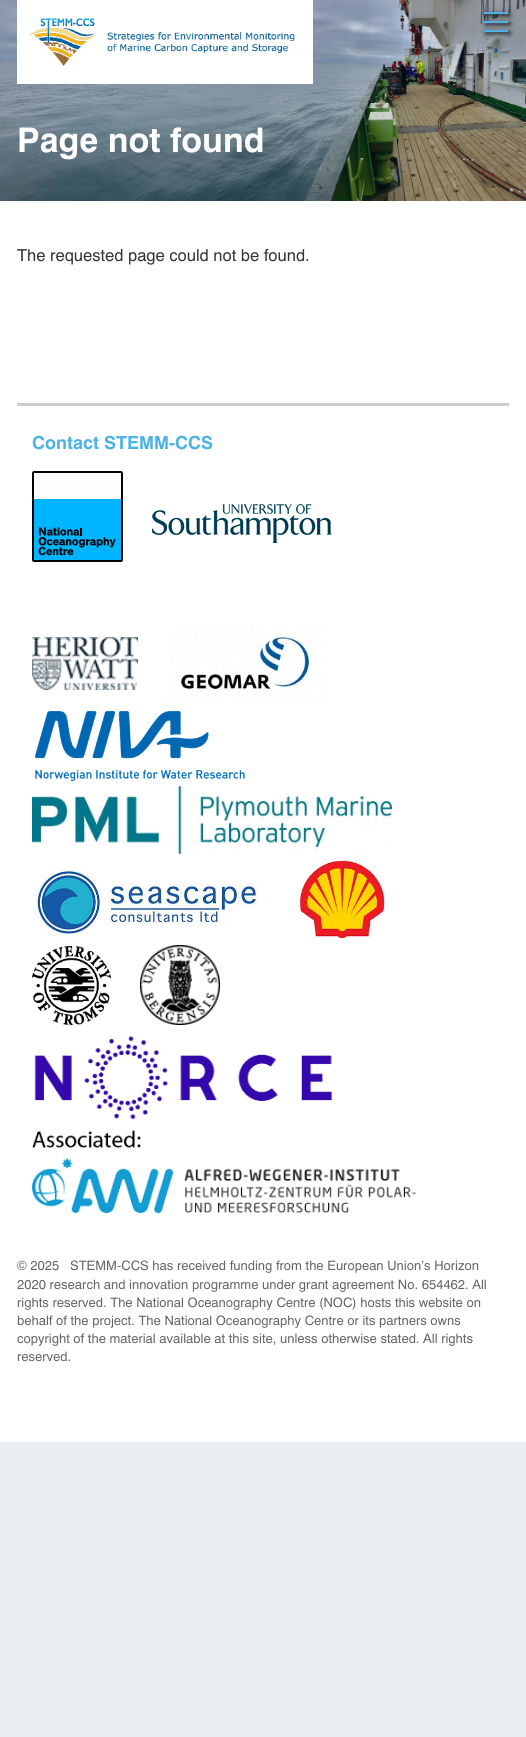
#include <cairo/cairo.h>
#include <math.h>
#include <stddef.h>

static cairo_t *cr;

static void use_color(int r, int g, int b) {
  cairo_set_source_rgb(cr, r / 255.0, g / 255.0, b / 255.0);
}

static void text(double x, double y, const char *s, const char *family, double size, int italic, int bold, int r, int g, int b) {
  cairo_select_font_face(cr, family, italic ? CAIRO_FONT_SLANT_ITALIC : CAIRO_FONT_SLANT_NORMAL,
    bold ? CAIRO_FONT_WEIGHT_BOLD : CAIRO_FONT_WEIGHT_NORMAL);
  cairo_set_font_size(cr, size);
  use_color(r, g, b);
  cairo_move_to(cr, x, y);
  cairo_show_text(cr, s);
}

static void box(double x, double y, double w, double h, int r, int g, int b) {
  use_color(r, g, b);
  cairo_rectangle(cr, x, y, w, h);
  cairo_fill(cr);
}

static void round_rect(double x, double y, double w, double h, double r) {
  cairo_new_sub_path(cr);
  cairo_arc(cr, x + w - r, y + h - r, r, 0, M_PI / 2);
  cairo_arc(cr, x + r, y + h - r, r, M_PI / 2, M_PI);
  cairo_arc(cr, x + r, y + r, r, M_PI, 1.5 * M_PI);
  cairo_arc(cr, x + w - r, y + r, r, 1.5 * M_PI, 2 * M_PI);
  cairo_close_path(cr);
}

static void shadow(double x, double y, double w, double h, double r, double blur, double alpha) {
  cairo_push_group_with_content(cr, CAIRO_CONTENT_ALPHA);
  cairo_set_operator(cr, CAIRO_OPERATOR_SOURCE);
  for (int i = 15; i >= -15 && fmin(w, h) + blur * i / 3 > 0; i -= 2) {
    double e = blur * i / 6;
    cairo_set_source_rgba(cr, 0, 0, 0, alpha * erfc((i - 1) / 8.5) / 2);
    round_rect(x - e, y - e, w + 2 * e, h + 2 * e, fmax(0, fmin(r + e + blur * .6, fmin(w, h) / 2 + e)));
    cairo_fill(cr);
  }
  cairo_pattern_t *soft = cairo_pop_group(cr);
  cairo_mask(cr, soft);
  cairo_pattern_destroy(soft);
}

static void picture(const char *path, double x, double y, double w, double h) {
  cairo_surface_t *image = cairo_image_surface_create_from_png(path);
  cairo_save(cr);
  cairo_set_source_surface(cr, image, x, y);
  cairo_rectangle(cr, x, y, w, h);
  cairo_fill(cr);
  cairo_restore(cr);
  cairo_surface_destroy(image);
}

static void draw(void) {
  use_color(234, 239, 243);
  cairo_paint(cr);
  box(0, 201, 526, 1241, 255, 255, 255);
  picture("img_02.png", 0, 0, 526, 201);
  box(17, 0, 296, 84, 255, 255, 255);
  picture("img_01.png", 29, 18, 266, 48);
  use_color(34, 34, 34);
  shadow(486, 23, 24, 2, 0, 2.5, 1);
  box(484, 21, 24, 2, 77, 179, 230);
  use_color(34, 34, 34);
  shadow(486, 14, 24, 2, 0, 2.5, 1);
  box(484, 12, 24, 2, 77, 179, 230);
  use_color(34, 34, 34);
  shadow(486, 32, 24, 2, 0, 2.5, 1);
  box(484, 30, 24, 2, 77, 179, 230);
  box(17, 403, 492, 3, 204, 204, 204);
  picture("img_03.png", 32, 471, 91, 91);
  picture("img_04.png", 152, 504, 180, 39);
  picture("img_05.png", 32, 637, 106, 53);
  picture("img_06.png", 167, 623, 156, 80);
  picture("img_07.png", 35, 711, 210, 70);
  picture("img_08.png", 32, 786, 360, 68);
  picture("img_09.png", 32, 868, 225, 72);
  picture("img_10.png", 298, 859, 87, 81);
  picture("img_11.png", 32, 946, 79, 79);
  picture("img_12.png", 140, 945, 80, 80);
  picture("img_13.png", 34, 1036, 299, 84);
  picture("img_14.png", 32, 1130, 384, 83);
  text(17, 152, "Page not found", "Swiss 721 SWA", 34, 0, 1, 253, 253, 253);
  text(17, 261, "The requested page could not be found.", "Swiss 721 SWA", 16.5, 0, 0, 51, 51, 51);
  text(32, 449, "Contact STEMM-CCS", "Swiss 721 SWA", 18, 0, 1, 77, 179, 230);
  text(17, 1270, "© 2025", "Swiss 721 SWA", 13, 0, 0, 102, 102, 102);
  text(70, 1270, "STEMM-CCS has received funding from the European Union’s Horizon", "Swiss 721 SWA", 13, 0, 0, 102, 102, 102);
  text(17, 1289, "2020 research and innovation programme under grant agreement No. 654462. All", "Swiss 721 SWA", 13, 0, 0, 102, 102, 102);
  text(17, 1307, "rights reserved. The National Oceanography Centre (NOC) hosts this website on", "Swiss 721 SWA", 13, 0, 0, 102, 102, 102);
  text(17, 1325, "behalf of the project. The National Oceanography Centre or its partners owns", "Swiss 721 SWA", 13, 0, 0, 102, 102, 102);
  text(17, 1343, "copyright of the material available at this site, unless otherwise stated. All rights", "Swiss 721 SWA", 13, 0, 0, 102, 102, 102);
  text(17, 1361, "reserved.", "Swiss 721 SWA", 13, 0, 0, 102, 102, 102);
}

int main(void) {
  cairo_surface_t *surface = cairo_image_surface_create(CAIRO_FORMAT_RGB24, 526, 1737);
  cr = cairo_create(surface);
  cairo_font_options_t *options = cairo_font_options_create();
  cairo_font_options_set_hint_metrics(options, CAIRO_HINT_METRICS_OFF);
  cairo_font_options_set_hint_style(options, CAIRO_HINT_STYLE_NONE);
  cairo_set_font_options(cr, options);
  cairo_set_miter_limit(cr, 4);
  draw();
  cairo_surface_write_to_png(surface, "out.png");
  cairo_font_options_destroy(options);
  cairo_destroy(cr);
  cairo_surface_destroy(surface);
  return 0;
}
